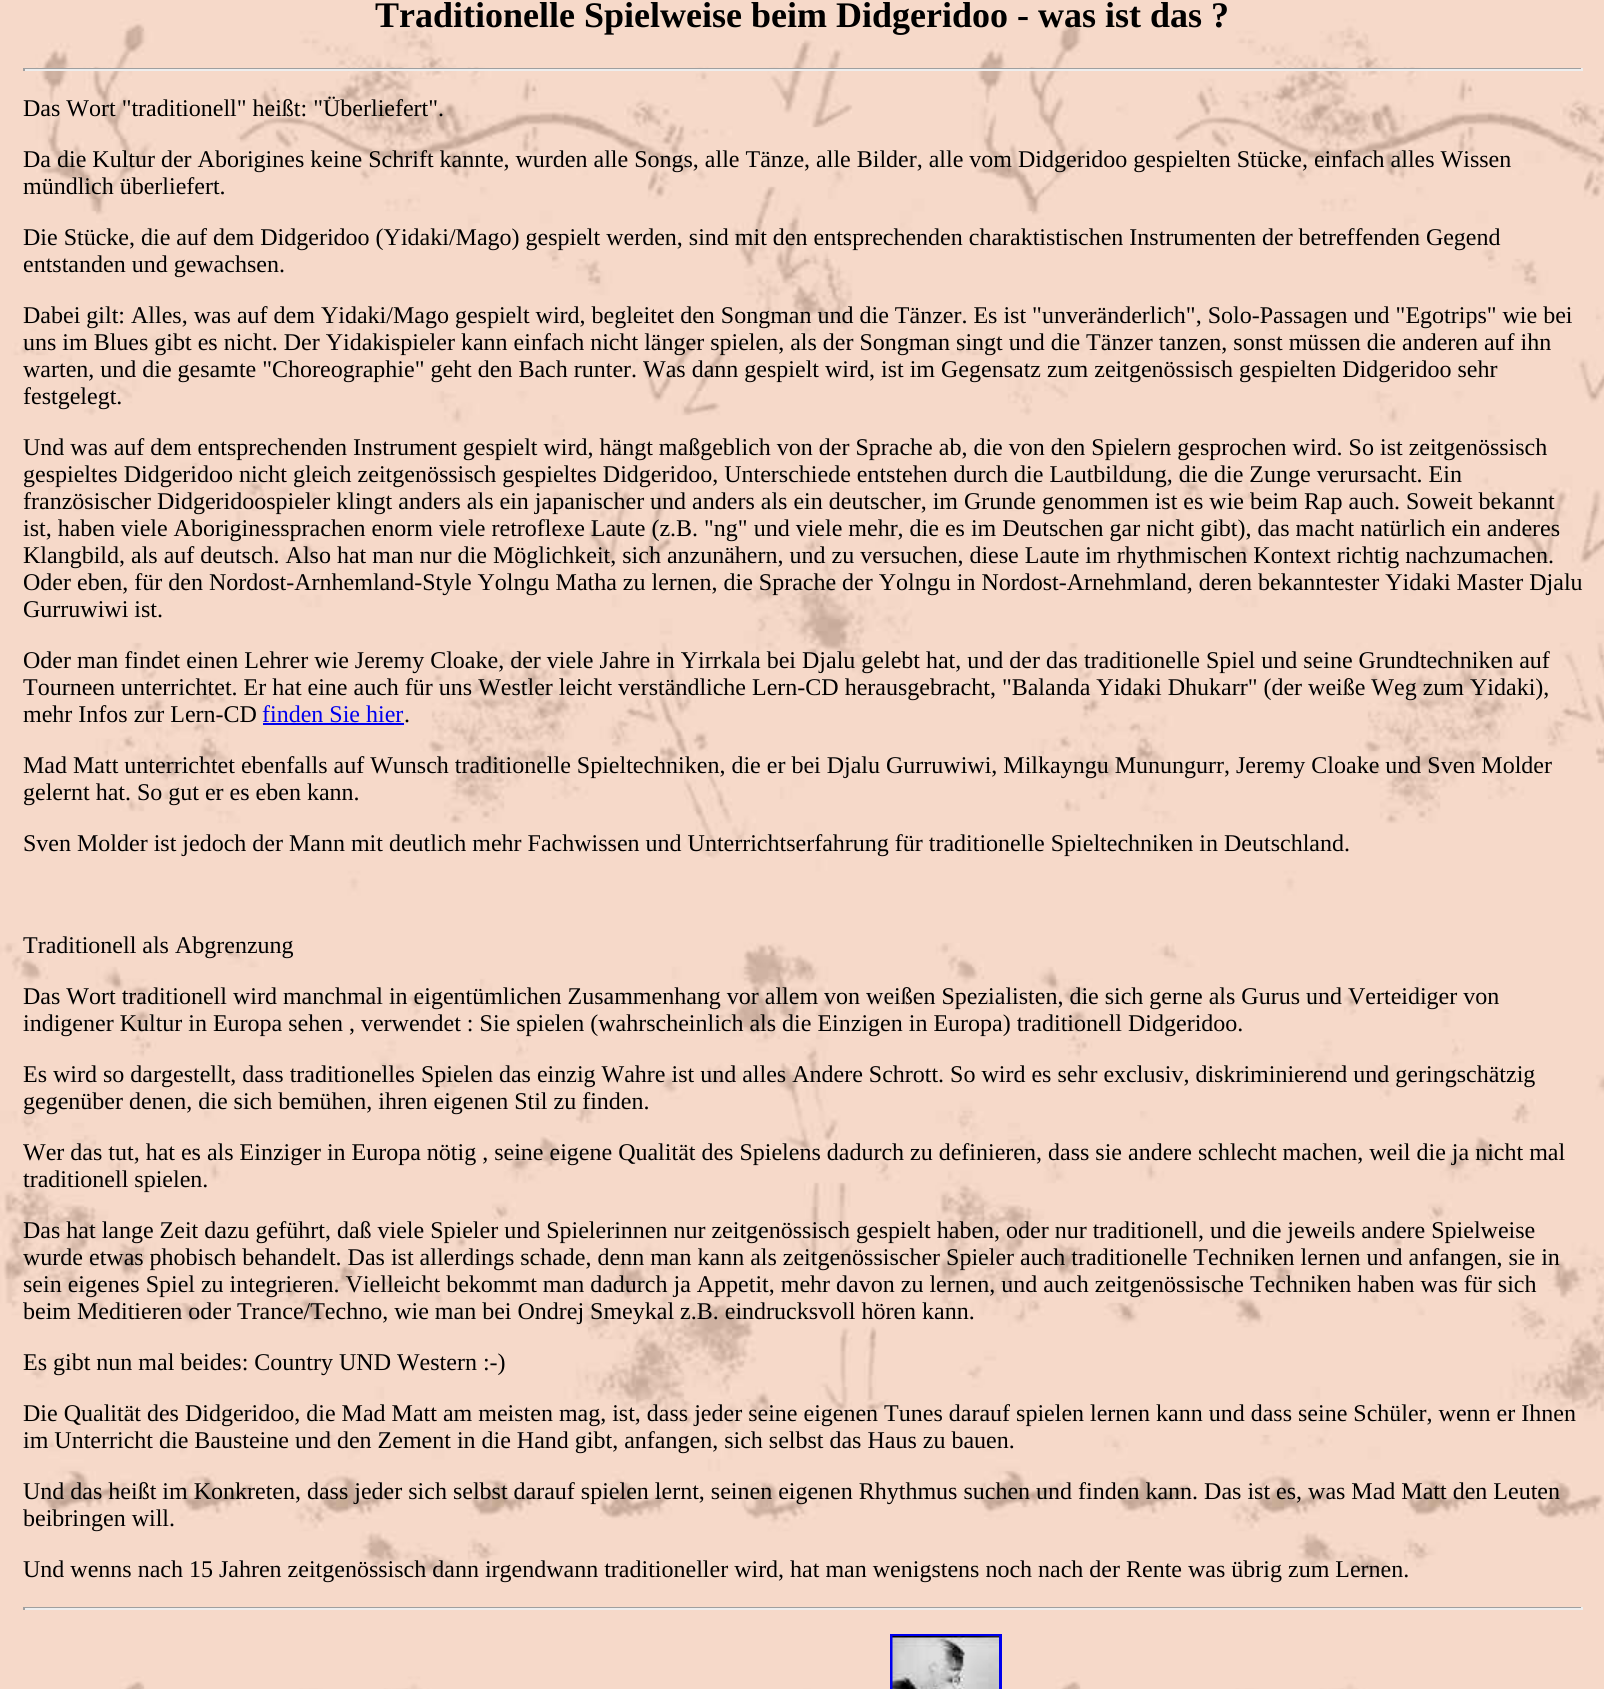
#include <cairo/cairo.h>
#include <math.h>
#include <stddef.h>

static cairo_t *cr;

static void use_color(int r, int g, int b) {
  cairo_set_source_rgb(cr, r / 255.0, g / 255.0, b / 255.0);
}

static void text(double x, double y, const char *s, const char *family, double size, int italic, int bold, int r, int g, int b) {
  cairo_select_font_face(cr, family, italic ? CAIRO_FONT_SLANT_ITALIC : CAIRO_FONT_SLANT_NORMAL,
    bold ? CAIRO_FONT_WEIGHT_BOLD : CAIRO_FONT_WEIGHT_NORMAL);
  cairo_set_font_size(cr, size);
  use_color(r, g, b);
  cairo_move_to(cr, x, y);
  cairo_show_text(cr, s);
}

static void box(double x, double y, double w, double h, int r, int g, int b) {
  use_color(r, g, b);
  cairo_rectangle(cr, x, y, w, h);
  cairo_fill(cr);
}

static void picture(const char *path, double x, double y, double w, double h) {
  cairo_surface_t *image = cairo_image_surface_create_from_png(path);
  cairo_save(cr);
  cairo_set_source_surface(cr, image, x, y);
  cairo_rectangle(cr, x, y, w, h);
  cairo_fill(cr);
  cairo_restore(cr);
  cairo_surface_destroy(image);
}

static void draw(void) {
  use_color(255, 255, 255);
  cairo_paint(cr);
  picture("img_01.png", 0, 0, 1604, 1689);
  box(23, 68, 1560, 1, 159, 159, 159);
  box(1581, 68, 2, 3, 238, 238, 238);
  box(23, 69, 1560, 2, 238, 238, 238);
  box(23, 68, 2, 3, 159, 159, 159);
  box(263, 723, 141, 2, 0, 0, 238);
  box(23, 1607, 1560, 1, 159, 159, 159);
  box(1581, 1607, 2, 3, 238, 238, 238);
  box(23, 1608, 1560, 2, 238, 238, 238);
  box(23, 1607, 2, 3, 159, 159, 159);
  cairo_rectangle(cr, 891.5, 1635.5, 109, 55);
  use_color(0, 0, 238);
  cairo_set_line_width(cr, 3);
  cairo_stroke(cr);
  picture("img_02.png", 892, 1636, 107, 53);
  text(375, 27, "Traditionelle Spielweise beim Didgeridoo - was ist das ?", "Liberation Serif", 36, 0, 1, 0, 0, 0);
  text(23, 116, "Das Wort \"traditionell\" heißt: \"Überliefert\".", "Liberation Serif", 24, 0, 0, 0, 0, 0);
  text(23, 167, "Da die Kultur der Aborigines keine Schrift kannte, wurden alle Songs, alle Tänze, alle Bilder, alle vom Didgeridoo gespielten Stücke, einfach alles Wissen", "Liberation Serif", 24, 0, 0, 0, 0, 0);
  text(23, 194, "mündlich überliefert.", "Liberation Serif", 24, 0, 0, 0, 0, 0);
  text(23, 245, "Die Stücke, die auf dem Didgeridoo (Yidaki/Mago) gespielt werden, sind mit den entsprechenden charaktistischen Instrumenten der betreffenden Gegend", "Liberation Serif", 24, 0, 0, 0, 0, 0);
  text(23, 272, "entstanden und gewachsen.", "Liberation Serif", 24, 0, 0, 0, 0, 0);
  text(23, 323, "Dabei gilt: Alles, was auf dem Yidaki/Mago gespielt wird, begleitet den Songman und die Tänzer. Es ist \"unveränderlich\", Solo-Passagen und \"Egotrips\" wie bei", "Liberation Serif", 24, 0, 0, 0, 0, 0);
  text(23, 350, "uns im Blues gibt es nicht. Der Yidakispieler kann einfach nicht länger spielen, als der Songman singt und die Tänzer tanzen, sonst müssen die anderen auf ihn", "Liberation Serif", 24, 0, 0, 0, 0, 0);
  text(23, 377, "warten, und die gesamte \"Choreographie\" geht den Bach runter. Was dann gespielt wird, ist im Gegensatz zum zeitgenössisch gespielten Didgeridoo sehr", "Liberation Serif", 24, 0, 0, 0, 0, 0);
  text(23, 404, "festgelegt.", "Liberation Serif", 24, 0, 0, 0, 0, 0);
  text(23, 455, "Und was auf dem entsprechenden Instrument gespielt wird, hängt maßgeblich von der Sprache ab, die von den Spielern gesprochen wird. So ist zeitgenössisch", "Liberation Serif", 24, 0, 0, 0, 0, 0);
  text(23, 482, "gespieltes Didgeridoo nicht gleich zeitgenössisch gespieltes Didgeridoo, Unterschiede entstehen durch die Lautbildung, die die Zunge verursacht. Ein", "Liberation Serif", 24, 0, 0, 0, 0, 0);
  text(23, 509, "französischer Didgeridoospieler klingt anders als ein japanischer und anders als ein deutscher, im Grunde genommen ist es wie beim Rap auch. Soweit bekannt", "Liberation Serif", 24, 0, 0, 0, 0, 0);
  text(23, 536, "ist, haben viele Aboriginessprachen enorm viele retroflexe Laute (z.B. \"ng\" und viele mehr, die es im Deutschen gar nicht gibt), das macht natürlich ein anderes", "Liberation Serif", 24, 0, 0, 0, 0, 0);
  text(23, 563, "Klangbild, als auf deutsch. Also hat man nur die Möglichkeit, sich anzunähern, und zu versuchen, diese Laute im rhythmischen Kontext richtig nachzumachen.", "Liberation Serif", 24, 0, 0, 0, 0, 0);
  text(23, 590, "Oder eben, für den Nordost-Arnhemland-Style Yolngu Matha zu lernen, die Sprache der Yolngu in Nordost-Arnehmland, deren bekanntester Yidaki Master Djalu", "Liberation Serif", 24, 0, 0, 0, 0, 0);
  text(23, 617, "Gurruwiwi ist.", "Liberation Serif", 24, 0, 0, 0, 0, 0);
  text(23, 668, "Oder man findet einen Lehrer wie Jeremy Cloake, der viele Jahre in Yirrkala bei Djalu gelebt hat, und der das traditionelle Spiel und seine Grundtechniken auf", "Liberation Serif", 24, 0, 0, 0, 0, 0);
  text(23, 695, "Tourneen unterrichtet. Er hat eine auch für uns Westler leicht verständliche Lern-CD herausgebracht, \"Balanda Yidaki Dhukarr\" (der weiße Weg zum Yidaki),", "Liberation Serif", 24, 0, 0, 0, 0, 0);
  text(23, 722, "mehr Infos zur Lern-CD", "Liberation Serif", 24, 0, 0, 0, 0, 0);
  text(262, 722, "finden Sie hier", "Liberation Serif", 24, 0, 0, 0, 0, 238);
  text(404, 722, ".", "Liberation Serif", 24, 0, 0, 0, 0, 0);
  text(23, 773, "Mad Matt unterrichtet ebenfalls auf Wunsch traditionelle Spieltechniken, die er bei Djalu Gurruwiwi, Milkayngu Munungurr, Jeremy Cloake und Sven Molder", "Liberation Serif", 24, 0, 0, 0, 0, 0);
  text(23, 800, "gelernt hat. So gut er es eben kann.", "Liberation Serif", 24, 0, 0, 0, 0, 0);
  text(23, 851, "Sven Molder ist jedoch der Mann mit deutlich mehr Fachwissen und Unterrichtserfahrung für traditionelle Spieltechniken in Deutschland.", "Liberation Serif", 24, 0, 0, 0, 0, 0);
  text(23, 953, "Traditionell als Abgrenzung", "Liberation Serif", 24, 0, 0, 0, 0, 0);
  text(23, 1004, "Das Wort traditionell wird manchmal in eigentümlichen Zusammenhang vor allem von weißen Spezialisten, die sich gerne als Gurus und Verteidiger von", "Liberation Serif", 24, 0, 0, 0, 0, 0);
  text(23, 1031, "indigener Kultur in Europa sehen , verwendet : Sie spielen (wahrscheinlich als die Einzigen in Europa) traditionell Didgeridoo.", "Liberation Serif", 24, 0, 0, 0, 0, 0);
  text(23, 1082, "Es wird so dargestellt, dass traditionelles Spielen das einzig Wahre ist und alles Andere Schrott. So wird es sehr exclusiv, diskriminierend und geringschätzig", "Liberation Serif", 24, 0, 0, 0, 0, 0);
  text(23, 1109, "gegenüber denen, die sich bemühen, ihren eigenen Stil zu finden.", "Liberation Serif", 24, 0, 0, 0, 0, 0);
  text(23, 1160, "Wer das tut, hat es als Einziger in Europa nötig , seine eigene Qualität des Spielens dadurch zu definieren, dass sie andere schlecht machen, weil die ja nicht mal", "Liberation Serif", 24, 0, 0, 0, 0, 0);
  text(23, 1187, "traditionell spielen.", "Liberation Serif", 24, 0, 0, 0, 0, 0);
  text(23, 1238, "Das hat lange Zeit dazu geführt, daß viele Spieler und Spielerinnen nur zeitgenössisch gespielt haben, oder nur traditionell, und die jeweils andere Spielweise", "Liberation Serif", 24, 0, 0, 0, 0, 0);
  text(23, 1265, "wurde etwas phobisch behandelt. Das ist allerdings schade, denn man kann als zeitgenössischer Spieler auch traditionelle Techniken lernen und anfangen, sie in", "Liberation Serif", 24, 0, 0, 0, 0, 0);
  text(23, 1292, "sein eigenes Spiel zu integrieren. Vielleicht bekommt man dadurch ja Appetit, mehr davon zu lernen, und auch zeitgenössische Techniken haben was für sich", "Liberation Serif", 24, 0, 0, 0, 0, 0);
  text(23, 1319, "beim Meditieren oder Trance/Techno, wie man bei Ondrej Smeykal z.B. eindrucksvoll hören kann.", "Liberation Serif", 24, 0, 0, 0, 0, 0);
  text(23, 1370, "Es gibt nun mal beides: Country UND Western :-)", "Liberation Serif", 24, 0, 0, 0, 0, 0);
  text(23, 1421, "Die Qualität des Didgeridoo, die Mad Matt am meisten mag, ist, dass jeder seine eigenen Tunes darauf spielen lernen kann und dass seine Schüler, wenn er Ihnen", "Liberation Serif", 24, 0, 0, 0, 0, 0);
  text(23, 1448, "im Unterricht die Bausteine und den Zement in die Hand gibt, anfangen, sich selbst das Haus zu bauen.", "Liberation Serif", 24, 0, 0, 0, 0, 0);
  text(23, 1499, "Und das heißt im Konkreten, dass jeder sich selbst darauf spielen lernt, seinen eigenen Rhythmus suchen und finden kann. Das ist es, was Mad Matt den Leuten", "Liberation Serif", 24, 0, 0, 0, 0, 0);
  text(23, 1526, "beibringen will.", "Liberation Serif", 24, 0, 0, 0, 0, 0);
  text(23, 1577, "Und wenns nach 15 Jahren zeitgenössisch dann irgendwann traditioneller wird, hat man wenigstens noch nach der Rente was übrig zum Lernen.", "Liberation Serif", 24, 0, 0, 0, 0, 0);
}

int main(void) {
  cairo_surface_t *surface = cairo_image_surface_create(CAIRO_FORMAT_RGB24, 1604, 1689);
  cr = cairo_create(surface);
  cairo_font_options_t *options = cairo_font_options_create();
  cairo_font_options_set_hint_metrics(options, CAIRO_HINT_METRICS_OFF);
  cairo_font_options_set_hint_style(options, CAIRO_HINT_STYLE_NONE);
  cairo_set_font_options(cr, options);
  cairo_set_miter_limit(cr, 4);
  draw();
  cairo_surface_write_to_png(surface, "out.png");
  cairo_font_options_destroy(options);
  cairo_destroy(cr);
  cairo_surface_destroy(surface);
  return 0;
}
